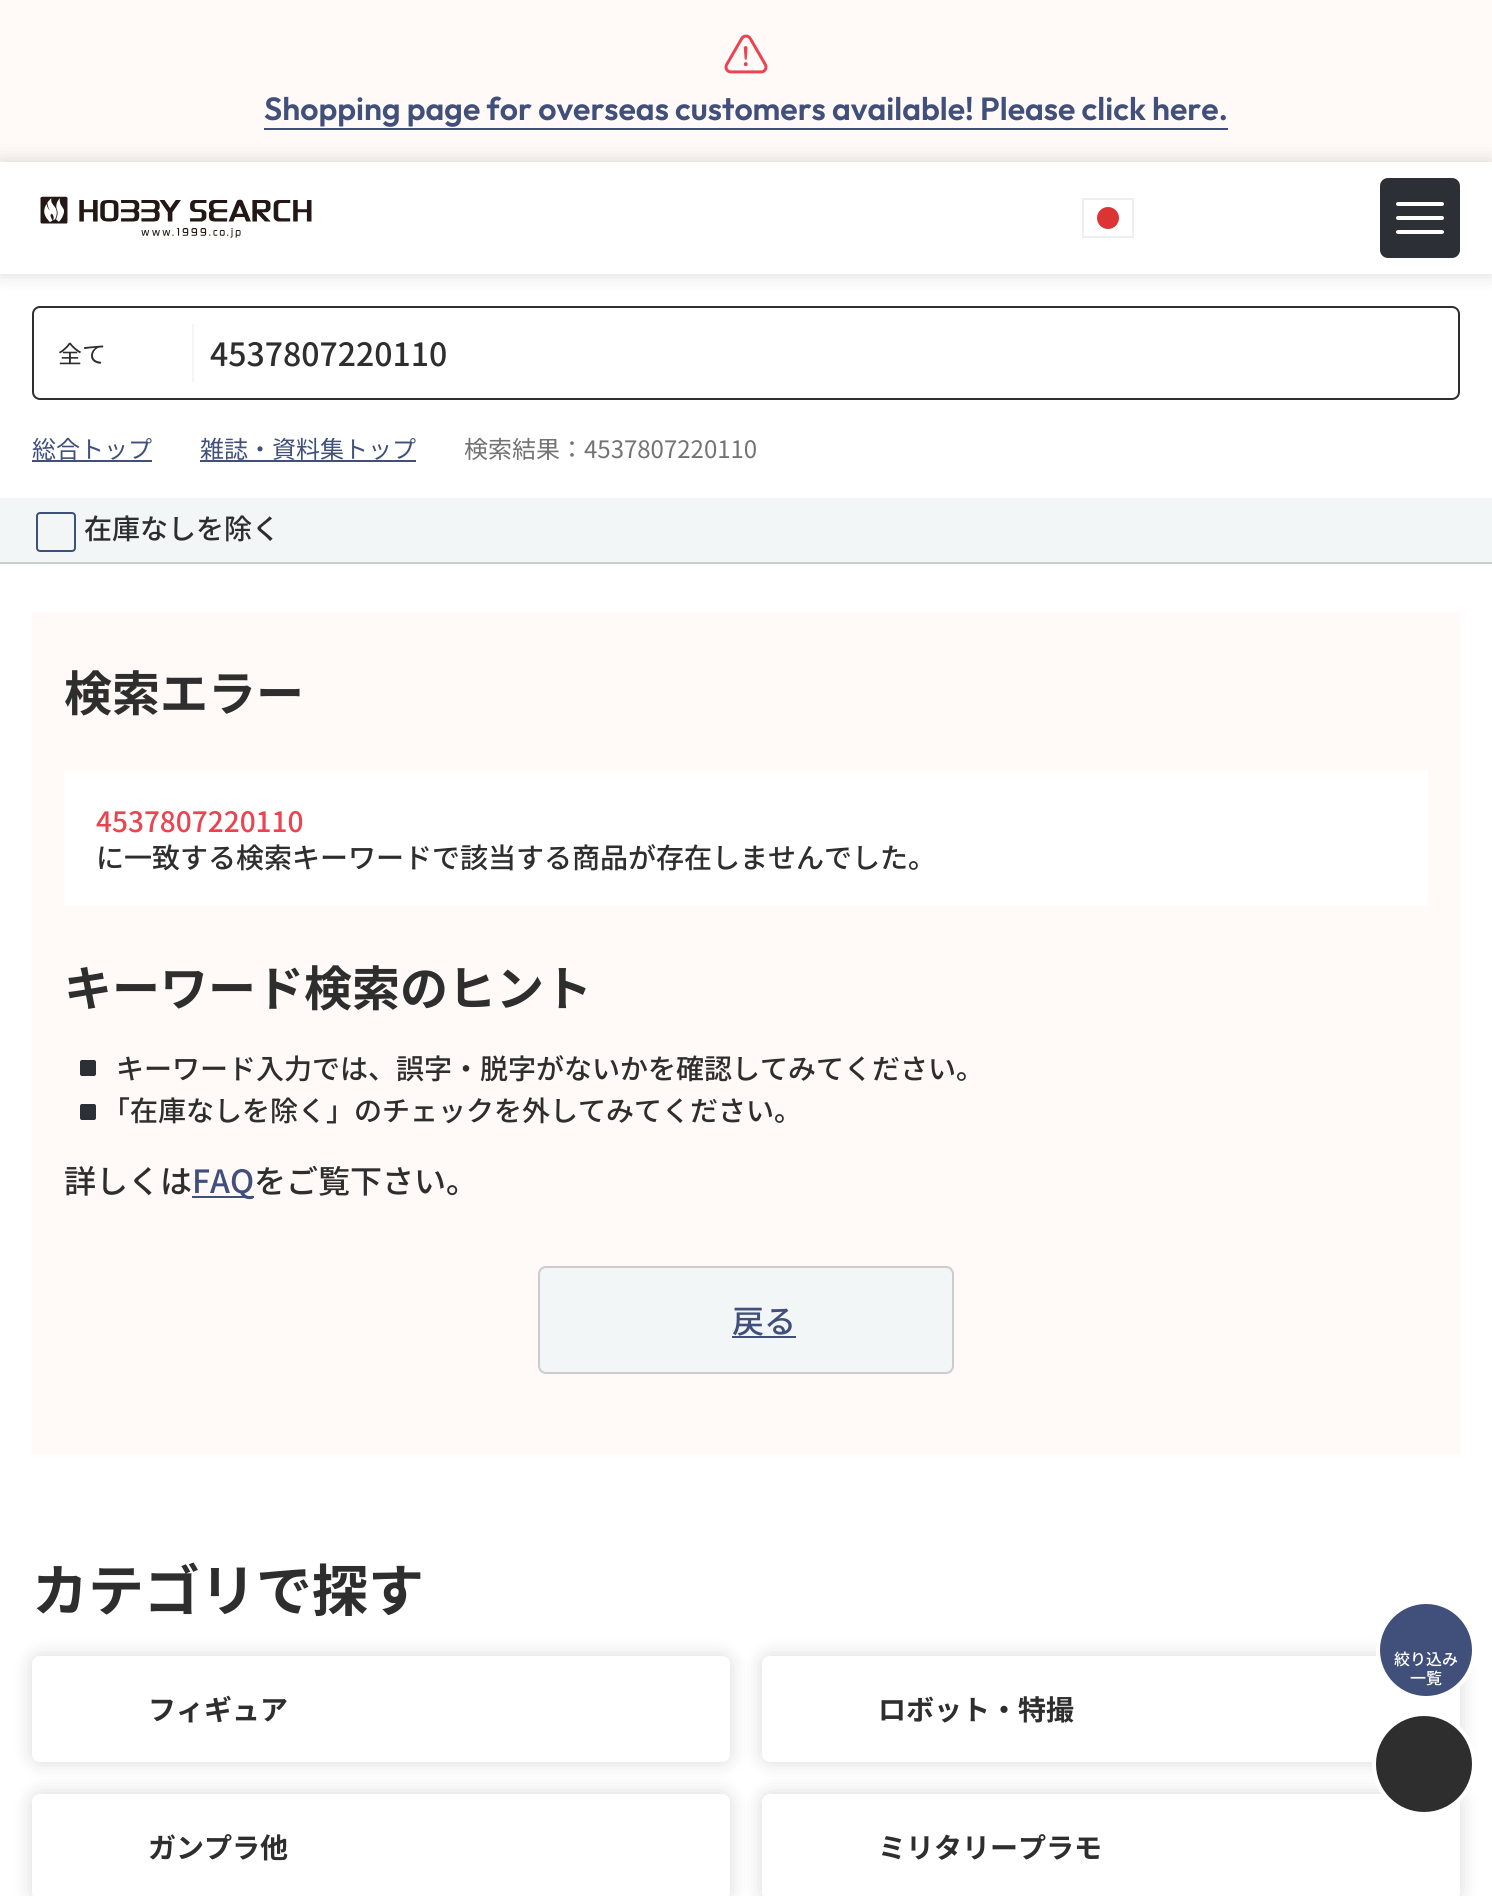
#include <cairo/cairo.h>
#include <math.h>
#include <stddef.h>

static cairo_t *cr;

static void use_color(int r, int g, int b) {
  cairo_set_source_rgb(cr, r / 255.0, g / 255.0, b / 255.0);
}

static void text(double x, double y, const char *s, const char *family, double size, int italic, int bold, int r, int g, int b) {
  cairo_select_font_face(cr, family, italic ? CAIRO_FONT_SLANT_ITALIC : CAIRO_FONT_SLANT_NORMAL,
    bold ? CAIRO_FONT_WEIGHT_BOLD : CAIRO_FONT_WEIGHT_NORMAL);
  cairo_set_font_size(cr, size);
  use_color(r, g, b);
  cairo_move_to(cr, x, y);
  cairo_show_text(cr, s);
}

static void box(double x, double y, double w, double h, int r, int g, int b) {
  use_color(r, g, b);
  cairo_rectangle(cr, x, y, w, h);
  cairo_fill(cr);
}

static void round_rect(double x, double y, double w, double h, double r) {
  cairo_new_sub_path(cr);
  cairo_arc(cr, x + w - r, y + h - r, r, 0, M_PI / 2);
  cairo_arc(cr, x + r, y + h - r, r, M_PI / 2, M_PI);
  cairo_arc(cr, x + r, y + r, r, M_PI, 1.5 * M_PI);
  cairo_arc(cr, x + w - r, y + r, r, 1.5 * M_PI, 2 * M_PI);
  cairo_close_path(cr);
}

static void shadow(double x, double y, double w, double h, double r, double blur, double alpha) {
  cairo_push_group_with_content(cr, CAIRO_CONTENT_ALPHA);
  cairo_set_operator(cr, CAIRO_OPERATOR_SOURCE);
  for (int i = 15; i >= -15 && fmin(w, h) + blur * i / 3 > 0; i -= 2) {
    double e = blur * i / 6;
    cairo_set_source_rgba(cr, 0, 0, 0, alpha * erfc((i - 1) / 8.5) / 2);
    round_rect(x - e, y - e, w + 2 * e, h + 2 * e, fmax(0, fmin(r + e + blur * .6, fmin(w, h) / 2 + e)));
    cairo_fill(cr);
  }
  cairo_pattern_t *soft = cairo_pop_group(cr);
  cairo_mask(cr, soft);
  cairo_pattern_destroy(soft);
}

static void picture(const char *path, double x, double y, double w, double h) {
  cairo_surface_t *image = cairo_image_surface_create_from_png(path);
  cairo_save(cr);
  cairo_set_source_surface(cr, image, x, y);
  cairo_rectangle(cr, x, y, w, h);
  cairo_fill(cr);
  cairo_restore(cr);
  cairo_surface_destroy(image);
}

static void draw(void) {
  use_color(255, 255, 255);
  cairo_paint(cr);
  box(0, 0, 1492, 162, 255, 249, 247);
  picture("img_01.png", 724, 34, 44, 40);
  box(264, 128, 964, 2, 64, 80, 123);
  cairo_save(cr);
  cairo_set_fill_rule(cr, CAIRO_FILL_RULE_EVEN_ODD);
  cairo_new_path(cr);
  cairo_move_to(cr, 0, 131);
  cairo_line_to(cr, 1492, 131);
  cairo_line_to(cr, 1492, 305);
  cairo_line_to(cr, 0, 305);
  cairo_close_path(cr);
  cairo_move_to(cr, 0, 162);
  cairo_line_to(cr, 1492, 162);
  cairo_line_to(cr, 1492, 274);
  cairo_line_to(cr, 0, 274);
  cairo_close_path(cr);
  cairo_clip(cr);
  use_color(0, 0, 0);
  shadow(0, 162, 1492, 112, 0, 10, 0.15);
  cairo_restore(cr);
  picture("img_02.png", 40, 196, 272, 42);
  cairo_rectangle(cr, 1083, 199, 50, 38);
  use_color(238, 238, 238);
  cairo_stroke(cr);
  use_color(220, 51, 51);
  cairo_arc(cr, 1108, 218, 11, 0, 2 * M_PI);
  cairo_fill(cr);
  use_color(45, 47, 54);
  round_rect(1380, 178, 80, 80, 8);
  cairo_fill(cr);
  use_color(255, 255, 255);
  round_rect(1396, 216, 48, 4, 2);
  cairo_fill(cr);
  round_rect(1396, 202, 48, 4, 2);
  cairo_fill(cr);
  round_rect(1396, 230, 48, 4, 2);
  cairo_fill(cr);
  round_rect(33, 307, 1426, 92, 7);
  use_color(46, 46, 46);
  cairo_stroke(cr);
  box(192, 324, 2, 58, 243, 246, 247);
  box(32, 460, 120, 2, 64, 80, 123);
  box(200, 460, 216, 2, 64, 80, 123);
  box(0, 498, 1492, 64, 243, 246, 247);
  box(0, 562, 1492, 2, 204, 204, 204);
  round_rect(37, 513, 38, 38, 3);
  use_color(64, 80, 123);
  cairo_stroke(cr);
  box(32, 612, 1428, 842, 255, 249, 247);
  box(64, 770, 1364, 136, 255, 255, 255);
  use_color(45, 47, 54);
  round_rect(80, 1060, 16, 16, 2);
  cairo_fill(cr);
  round_rect(80, 1104, 16, 16, 2);
  cairo_fill(cr);
  box(192, 1196, 62, 2, 64, 80, 123);
  use_color(243, 246, 247);
  round_rect(539, 1267, 414, 106, 7);
  cairo_fill_preserve(cr);
  use_color(204, 204, 204);
  cairo_stroke(cr);
  box(732, 1336, 64, 2, 64, 80, 123);
  use_color(0, 0, 0);
  shadow(762, 1656, 698, 106, 8, 10, 0.15);
  use_color(255, 255, 255);
  round_rect(762, 1656, 698, 106, 8);
  cairo_fill(cr);
  use_color(64, 80, 123);
  cairo_arc(cr, 1426, 1650, 48, 0, 2 * M_PI);
  cairo_fill_preserve(cr);
  use_color(255, 255, 255);
  cairo_set_line_width(cr, 4);
  cairo_stroke(cr);
  use_color(0, 0, 0);
  shadow(32, 1656, 698, 106, 8, 10, 0.15);
  use_color(255, 255, 255);
  round_rect(32, 1656, 698, 106, 8);
  cairo_fill(cr);
  use_color(0, 0, 0);
  shadow(32, 1794, 698, 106, 8, 10, 0.15);
  use_color(255, 255, 255);
  round_rect(32, 1794, 698, 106, 8);
  cairo_fill(cr);
  use_color(0, 0, 0);
  shadow(762, 1794, 698, 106, 8, 10, 0.15);
  use_color(255, 255, 255);
  round_rect(762, 1794, 698, 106, 8);
  cairo_fill(cr);
  use_color(46, 46, 46);
  cairo_arc(cr, 1424, 1764, 50, 0, 2 * M_PI);
  cairo_fill_preserve(cr);
  use_color(255, 255, 255);
  cairo_stroke(cr);
  text(264, 120, "Shopping page for overseas customers available! Please click here.", "Outfit SemiBold", 32, 0, 0, 64, 80, 123);
  text(58, 363, "全て", "Noto Sans JP", 24, 0, 0, 46, 46, 46);
  text(210, 366, "4537807220110", "Noto Sans JP Medium", 32, 0, 0, 46, 46, 46);
  text(32, 458, "総合トップ", "Noto Sans JP", 24, 0, 0, 64, 80, 123);
  text(200, 458, "雑誌・資料集トップ", "Noto Sans JP", 24, 0, 0, 64, 80, 123);
  text(464, 458, "検索結果：4537807220110", "Noto Sans JP", 24, 0, 0, 115, 115, 115);
  text(84, 539, "在庫なしを除く", "Noto Sans JP Medium", 28, 0, 0, 46, 46, 46);
  text(64, 711, "検索エラー", "Noto Sans JP", 48, 0, 1, 46, 46, 46);
  text(96, 832, "4537807220110", "Noto Sans JP Medium", 28, 0, 0, 234, 68, 80);
  text(96, 868, "に一致する検索キーワードで該当する商品が存在しませんでした。", "Noto Sans JP Medium", 28, 0, 0, 46, 46, 46);
  text(64, 1006, "キーワード検索のヒント", "Noto Sans JP", 48, 0, 1, 46, 46, 46);
  text(116, 1079, "キーワード入力では、誤字・脱字がないかを確認してみてください。", "Noto Sans JP Medium", 28, 0, 0, 46, 46, 46);
  text(116, 1121, "｢在庫なしを除く」のチェックを外してみてください。", "Noto Sans JP Medium", 28, 0, 0, 46, 46, 46);
  text(64, 1193, "詳しくは", "Noto Sans JP Medium", 32, 0, 0, 46, 46, 46);
  text(192, 1193, "FAQ", "Noto Sans JP Medium", 32, 0, 0, 64, 80, 123);
  text(254, 1193, "をご覧下さい。", "Noto Sans JP Medium", 32, 0, 0, 46, 46, 46);
  text(732, 1333, "戻る", "Noto Sans JP Medium", 32, 0, 0, 64, 80, 123);
  text(1394, 1665, "絞り込み", "Noto Sans JP Medium", 16, 0, 0, 255, 255, 255);
  text(1410, 1684, "一覧", "Noto Sans JP Medium", 16, 0, 0, 255, 255, 255);
  text(32, 1611, "カテゴリで探す", "Noto Sans JP", 56, 0, 1, 46, 46, 46);
  text(148, 1720, "フィギュア", "Noto Sans JP", 28, 0, 1, 46, 46, 46);
  text(878, 1720, "ロボット・特撮", "Noto Sans JP", 28, 0, 1, 46, 46, 46);
  text(148, 1858, "ガンプラ他", "Noto Sans JP", 28, 0, 1, 46, 46, 46);
  text(878, 1858, "ミリタリープラモ", "Noto Sans JP", 28, 0, 1, 46, 46, 46);
}

int main(void) {
  cairo_surface_t *surface = cairo_image_surface_create(CAIRO_FORMAT_RGB24, 1492, 1896);
  cr = cairo_create(surface);
  cairo_font_options_t *options = cairo_font_options_create();
  cairo_font_options_set_hint_metrics(options, CAIRO_HINT_METRICS_OFF);
  cairo_font_options_set_hint_style(options, CAIRO_HINT_STYLE_NONE);
  cairo_set_font_options(cr, options);
  cairo_set_miter_limit(cr, 4);
  draw();
  cairo_surface_write_to_png(surface, "out.png");
  cairo_font_options_destroy(options);
  cairo_destroy(cr);
  cairo_surface_destroy(surface);
  return 0;
}
